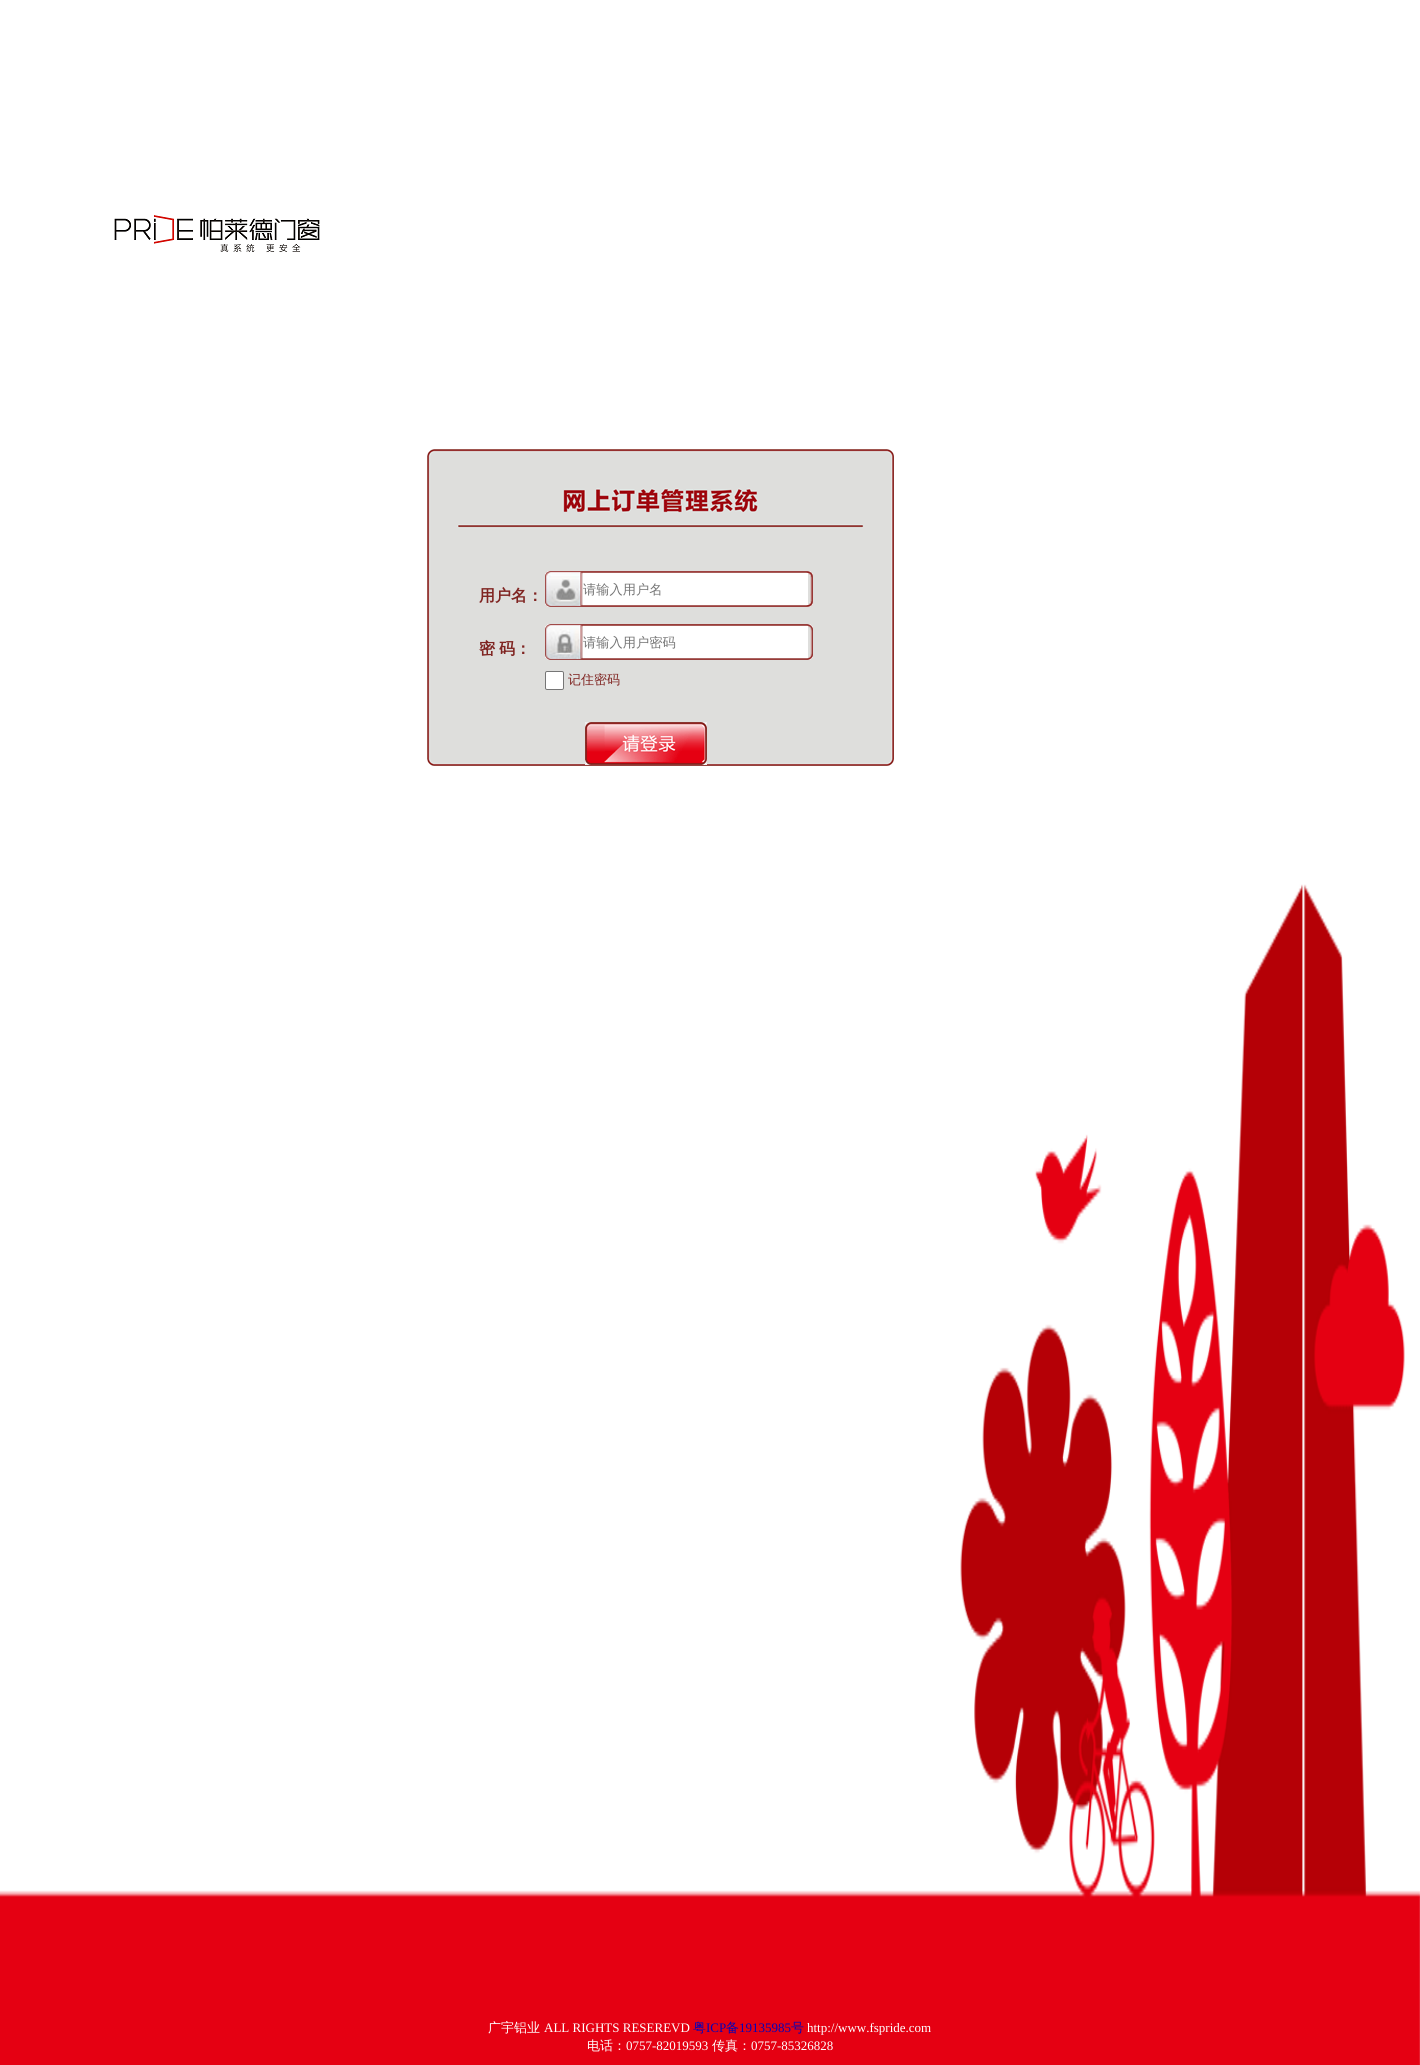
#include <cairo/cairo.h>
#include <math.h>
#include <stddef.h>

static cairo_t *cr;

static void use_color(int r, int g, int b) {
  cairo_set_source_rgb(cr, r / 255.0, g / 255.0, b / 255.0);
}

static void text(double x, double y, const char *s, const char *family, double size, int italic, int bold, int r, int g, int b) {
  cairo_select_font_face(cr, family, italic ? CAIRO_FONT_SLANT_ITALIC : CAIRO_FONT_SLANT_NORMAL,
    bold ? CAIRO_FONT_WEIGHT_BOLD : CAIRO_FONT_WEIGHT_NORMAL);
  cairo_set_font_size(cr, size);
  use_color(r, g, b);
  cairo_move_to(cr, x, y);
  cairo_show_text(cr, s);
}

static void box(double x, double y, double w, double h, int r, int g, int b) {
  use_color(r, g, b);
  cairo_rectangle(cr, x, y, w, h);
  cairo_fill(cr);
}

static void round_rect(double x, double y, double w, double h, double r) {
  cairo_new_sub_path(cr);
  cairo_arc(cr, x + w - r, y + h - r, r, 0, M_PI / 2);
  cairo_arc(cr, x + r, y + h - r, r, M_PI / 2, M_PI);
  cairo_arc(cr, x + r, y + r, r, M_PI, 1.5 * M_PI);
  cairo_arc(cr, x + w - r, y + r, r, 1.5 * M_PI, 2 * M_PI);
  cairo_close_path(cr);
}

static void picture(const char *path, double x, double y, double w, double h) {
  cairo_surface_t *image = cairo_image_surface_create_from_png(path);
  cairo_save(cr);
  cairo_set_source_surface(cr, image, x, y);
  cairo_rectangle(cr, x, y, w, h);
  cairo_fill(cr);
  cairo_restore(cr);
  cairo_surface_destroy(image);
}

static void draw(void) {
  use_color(255, 255, 255);
  cairo_paint(cr);
  picture("img_01.png", 0, 884, 1420, 1181);
  picture("img_02.png", 114, 215, 206, 38);
  picture("img_03.png", 427, 449, 467, 317);
  picture("img_04.png", 545, 571, 268, 36);
  box(583, 573, 225, 32, 255, 255, 255);
  picture("img_05.png", 545, 624, 268, 36);
  box(583, 626, 225, 32, 255, 255, 255);
  round_rect(545.5, 671.5, 18, 18, 1.5);
  cairo_fill_preserve(cr);
  use_color(118, 118, 118);
  cairo_set_line_width(cr, 1);
  cairo_stroke(cr);
  box(585, 722, 122, 43, 239, 239, 239);
  picture("img_06.png", 585, 722, 122, 43);
  text(479, 601, "用户名：", "WenQuanYi Zen Hei", 16, 0, 1, 127, 36, 33);
  text(583, 594, "请输入用户名", "WenQuanYi Zen Hei Medium", 13.25, 0, 0, 117, 117, 117);
  text(479, 654, "密", "WenQuanYi Zen Hei", 16, 0, 1, 127, 36, 33);
  text(499, 654, "码：", "WenQuanYi Zen Hei", 16, 0, 1, 127, 36, 33);
  text(583, 647, "请输入用户密码", "WenQuanYi Zen Hei Medium", 13.25, 0, 0, 117, 117, 117);
  text(568, 684, "记住密码", "WenQuanYi Zen Hei Medium", 13, 0, 0, 127, 36, 33);
  text(488, 2032, "广宇铝业", "WenQuanYi Zen Hei Medium", 13, 0, 0, 255, 255, 255);
  text(544, 2032, "ALL RIGHTS RESEREVD", "Liberation Serif", 13, 0, 0, 255, 255, 255);
  text(693, 2032, "粤", "WenQuanYi Zen Hei Medium", 13, 0, 0, 4, 4, 185);
  text(706, 2032, "ICP", "Liberation Serif", 13, 0, 0, 4, 4, 185);
  text(726, 2032, "备", "WenQuanYi Zen Hei Medium", 13, 0, 0, 4, 4, 185);
  text(739, 2032, "19135985", "Liberation Serif", 13, 0, 0, 4, 4, 185);
  text(791, 2032, "号", "WenQuanYi Zen Hei Medium", 13, 0, 0, 4, 4, 185);
  text(807, 2032, "http://www.fspride.com", "Liberation Serif", 13, 0, 0, 255, 255, 255);
  text(587, 2050, "电话：", "WenQuanYi Zen Hei Medium", 13, 0, 0, 255, 255, 255);
  text(626, 2050, "0757-82019593", "Liberation Serif", 13, 0, 0, 255, 255, 255);
  text(712, 2050, "传真：", "WenQuanYi Zen Hei Medium", 13, 0, 0, 255, 255, 255);
  text(751, 2050, "0757-85326828", "Liberation Serif", 13, 0, 0, 255, 255, 255);
}

int main(void) {
  cairo_surface_t *surface = cairo_image_surface_create(CAIRO_FORMAT_RGB24, 1420, 2065);
  cr = cairo_create(surface);
  cairo_font_options_t *options = cairo_font_options_create();
  cairo_font_options_set_hint_metrics(options, CAIRO_HINT_METRICS_OFF);
  cairo_font_options_set_hint_style(options, CAIRO_HINT_STYLE_NONE);
  cairo_set_font_options(cr, options);
  cairo_set_miter_limit(cr, 4);
  draw();
  cairo_surface_write_to_png(surface, "out.png");
  cairo_font_options_destroy(options);
  cairo_destroy(cr);
  cairo_surface_destroy(surface);
  return 0;
}
